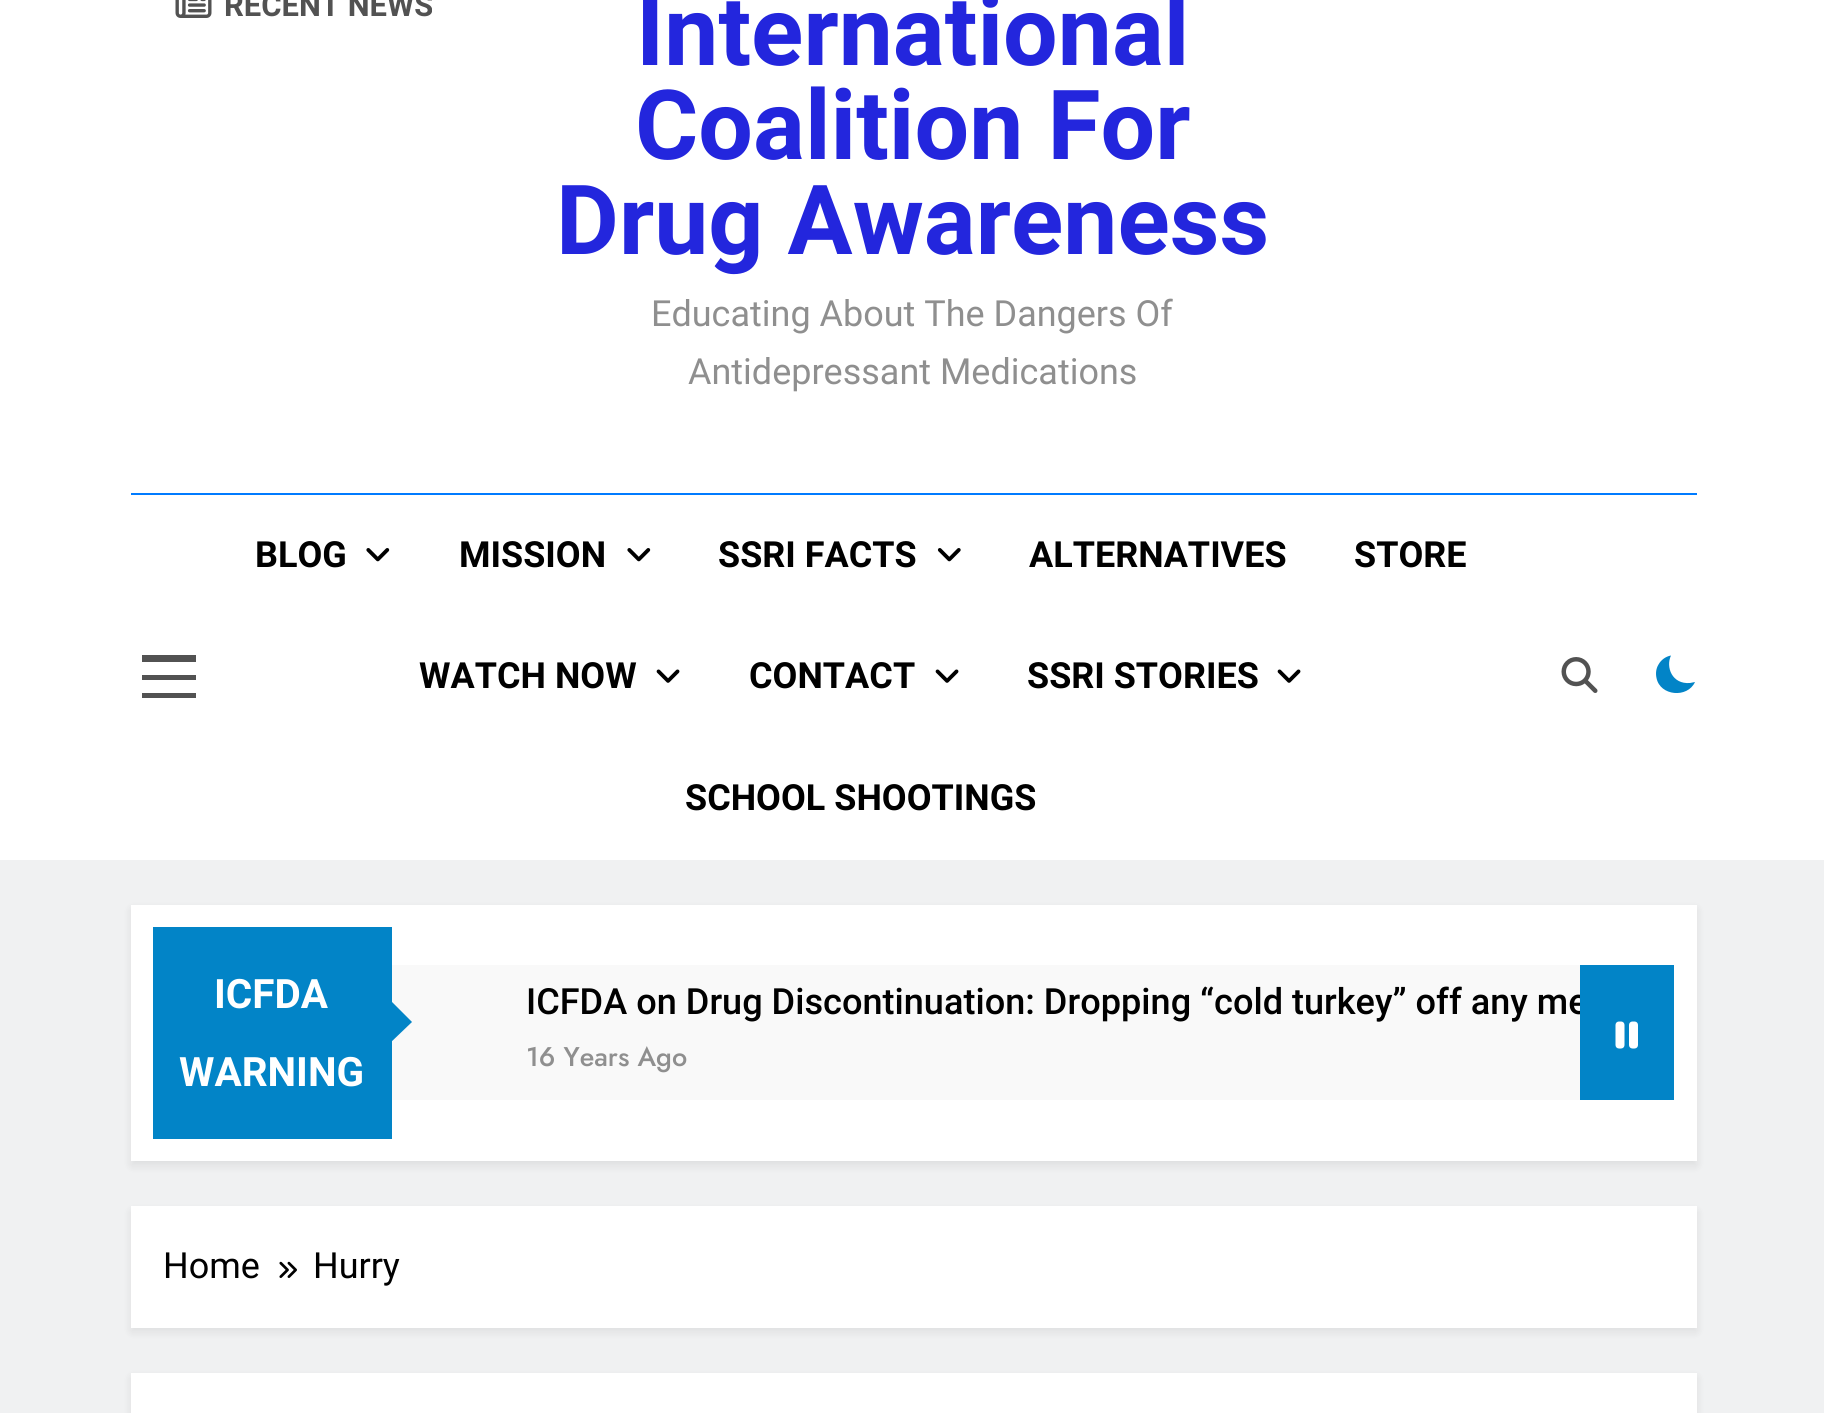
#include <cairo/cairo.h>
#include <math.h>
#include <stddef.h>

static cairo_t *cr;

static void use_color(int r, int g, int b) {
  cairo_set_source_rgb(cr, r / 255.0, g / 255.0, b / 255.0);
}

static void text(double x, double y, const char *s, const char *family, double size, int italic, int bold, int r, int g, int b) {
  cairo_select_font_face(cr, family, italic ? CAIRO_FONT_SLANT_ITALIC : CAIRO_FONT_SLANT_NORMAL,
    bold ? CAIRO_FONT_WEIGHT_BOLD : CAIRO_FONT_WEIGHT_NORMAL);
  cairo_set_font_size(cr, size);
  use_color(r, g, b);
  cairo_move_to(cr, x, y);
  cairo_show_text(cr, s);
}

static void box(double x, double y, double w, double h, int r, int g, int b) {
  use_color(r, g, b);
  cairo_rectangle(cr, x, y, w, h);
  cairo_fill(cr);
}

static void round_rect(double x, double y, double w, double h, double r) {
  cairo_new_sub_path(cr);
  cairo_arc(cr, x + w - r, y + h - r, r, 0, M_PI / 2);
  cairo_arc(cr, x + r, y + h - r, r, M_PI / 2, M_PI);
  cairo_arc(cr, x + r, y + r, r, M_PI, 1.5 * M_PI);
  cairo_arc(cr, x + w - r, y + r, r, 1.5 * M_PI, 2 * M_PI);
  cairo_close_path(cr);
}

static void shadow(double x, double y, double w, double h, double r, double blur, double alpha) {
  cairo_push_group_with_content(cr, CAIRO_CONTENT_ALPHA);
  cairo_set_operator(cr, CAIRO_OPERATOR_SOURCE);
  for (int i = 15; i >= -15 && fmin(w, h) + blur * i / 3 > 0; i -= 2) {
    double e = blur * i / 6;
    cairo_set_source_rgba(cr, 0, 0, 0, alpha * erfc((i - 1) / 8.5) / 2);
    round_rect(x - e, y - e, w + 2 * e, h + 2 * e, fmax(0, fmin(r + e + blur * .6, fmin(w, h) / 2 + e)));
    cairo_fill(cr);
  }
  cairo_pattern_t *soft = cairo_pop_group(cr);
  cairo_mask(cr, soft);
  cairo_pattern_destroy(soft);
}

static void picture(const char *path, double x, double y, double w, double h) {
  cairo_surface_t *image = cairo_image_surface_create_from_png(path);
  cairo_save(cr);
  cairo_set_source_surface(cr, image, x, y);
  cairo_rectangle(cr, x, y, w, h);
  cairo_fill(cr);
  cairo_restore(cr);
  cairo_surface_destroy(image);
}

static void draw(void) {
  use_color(240, 241, 242);
  cairo_paint(cr);
  box(0, 0, 1824, 860, 255, 255, 255);
  picture("img_01.png", 175, 0, 37, 18);
  box(131, 493, 1566, 2, 0, 123, 255);
  box(142, 655, 54, 7, 82, 82, 82);
  box(142, 675, 54, 5, 82, 82, 82);
  box(142, 693, 54, 5, 82, 82, 82);
  picture("img_02.png", 366, 548, 24, 14);
  picture("img_02.png", 627, 548, 24, 14);
  picture("img_03.png", 937, 548, 24, 14);
  picture("img_04.png", 656, 669, 24, 14);
  picture("img_04.png", 935, 669, 24, 14);
  picture("img_04.png", 1277, 669, 24, 14);
  picture("img_05.png", 1561, 657, 37, 36);
  use_color(2, 132, 199);
  cairo_new_path(cr);
  cairo_move_to(cr, 1695, 682);
  cairo_line_to(cr, 1690, 683);
  cairo_curve_to(cr, 1672, 684.5, 1665.5, 667, 1671, 655.5);
  cairo_curve_to(cr, 1665.5, 656.5, 1661, 660, 1658.5, 664.5);
  cairo_curve_to(cr, 1656, 668.5, 1655.5, 673.5, 1656.5, 678);
  cairo_curve_to(cr, 1660, 696, 1687.5, 698.5, 1695, 682);
  cairo_close_path(cr);
  cairo_fill(cr);
  use_color(0, 0, 0);
  shadow(131, 909, 1566, 257, 0, 4.5, 0.08);
  box(131, 905, 1566, 256, 255, 255, 255);
  box(153, 927, 239, 212, 2, 132, 199);
  box(392, 965, 1188, 135, 249, 249, 249);
  use_color(2, 132, 199);
  cairo_new_path(cr);
  cairo_move_to(cr, 389, 1044);
  cairo_line_to(cr, 389, 999);
  cairo_line_to(cr, 412, 1022);
  cairo_close_path(cr);
  cairo_fill(cr);
  box(1580, 965, 94, 135, 2, 132, 199);
  picture("img_06.png", 1615, 1021, 23, 28);
  use_color(0, 0, 0);
  shadow(131, 1211, 1566, 121, 0, 4.5, 0.08);
  box(131, 1206, 1566, 122, 255, 255, 255);
  picture("img_07.png", 279, 1261, 18, 17);
  use_color(0, 0, 0);
  shadow(131, 1377, 1566, 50, 0, 4.5, 0.08);
  box(131, 1373, 1566, 40, 255, 255, 255);
  text(224, 16, "RECENT NEWS", "Roboto", 31, 0, 1, 82, 82, 82);
  text(636, 65, "International", "Roboto", 96.75, 0, 1, 35, 38, 221);
  text(635, 159, "Coalition For", "Roboto", 96.75, 0, 1, 35, 38, 221);
  text(556, 254, "Drug Awareness", "Roboto", 96.75, 0, 1, 35, 38, 221);
  text(651, 326, "Educating About The Dangers Of", "Roboto", 36, 0, 0, 143, 143, 143);
  text(688, 384, "Antidepressant Medications", "Roboto", 36, 0, 0, 143, 143, 143);
  text(255, 567, "BLOG", "Roboto", 36, 0, 1, 0, 0, 0);
  text(459, 567, "MISSION", "Roboto", 36, 0, 1, 0, 0, 0);
  text(718, 567, "SSRI FACTS", "Roboto", 36, 0, 1, 0, 0, 0);
  text(1029, 567, "ALTERNATIVES", "Roboto", 36, 0, 1, 0, 0, 0);
  text(1354, 567, "STORE", "Roboto", 36, 0, 1, 0, 0, 0);
  text(419, 688, "WATCH NOW", "Roboto", 36, 0, 1, 0, 0, 0);
  text(749, 688, "CONTACT", "Roboto", 36, 0, 1, 0, 0, 0);
  text(1027, 688, "SSRI STORIES", "Roboto", 36, 0, 1, 0, 0, 0);
  text(685, 810, "SCHOOL SHOOTINGS", "Roboto", 36, 0, 1, 0, 0, 0);
  text(214, 1008, "ICFDA", "Roboto", 40.5, 0, 1, 255, 255, 255);
  text(179, 1086, "WARNING", "Roboto", 40.5, 0, 1, 255, 255, 255);
  cairo_save(cr);
  cairo_rectangle(cr, 527, 981, 1053, 43);
  cairo_clip(cr);
  text(526, 1014, "ICFDA on Drug Discontinuation: Dropping “cold turkey” off any me", "Roboto Medium", 36.1, 0, 0, 0, 0, 0);
  cairo_restore(cr);
  text(526, 1066, "16 Years Ago", "Jost Medium", 27, 0, 0, 143, 143, 143);
  text(163, 1278, "Home", "Roboto", 36, 0, 0, 0, 0, 0);
  text(313, 1278, "Hurry", "Roboto", 36, 0, 0, 0, 0, 0);
}

int main(void) {
  cairo_surface_t *surface = cairo_image_surface_create(CAIRO_FORMAT_RGB24, 1824, 1413);
  cr = cairo_create(surface);
  cairo_font_options_t *options = cairo_font_options_create();
  cairo_font_options_set_hint_metrics(options, CAIRO_HINT_METRICS_OFF);
  cairo_font_options_set_hint_style(options, CAIRO_HINT_STYLE_NONE);
  cairo_set_font_options(cr, options);
  cairo_set_miter_limit(cr, 4);
  draw();
  cairo_surface_write_to_png(surface, "out.png");
  cairo_font_options_destroy(options);
  cairo_destroy(cr);
  cairo_surface_destroy(surface);
  return 0;
}
